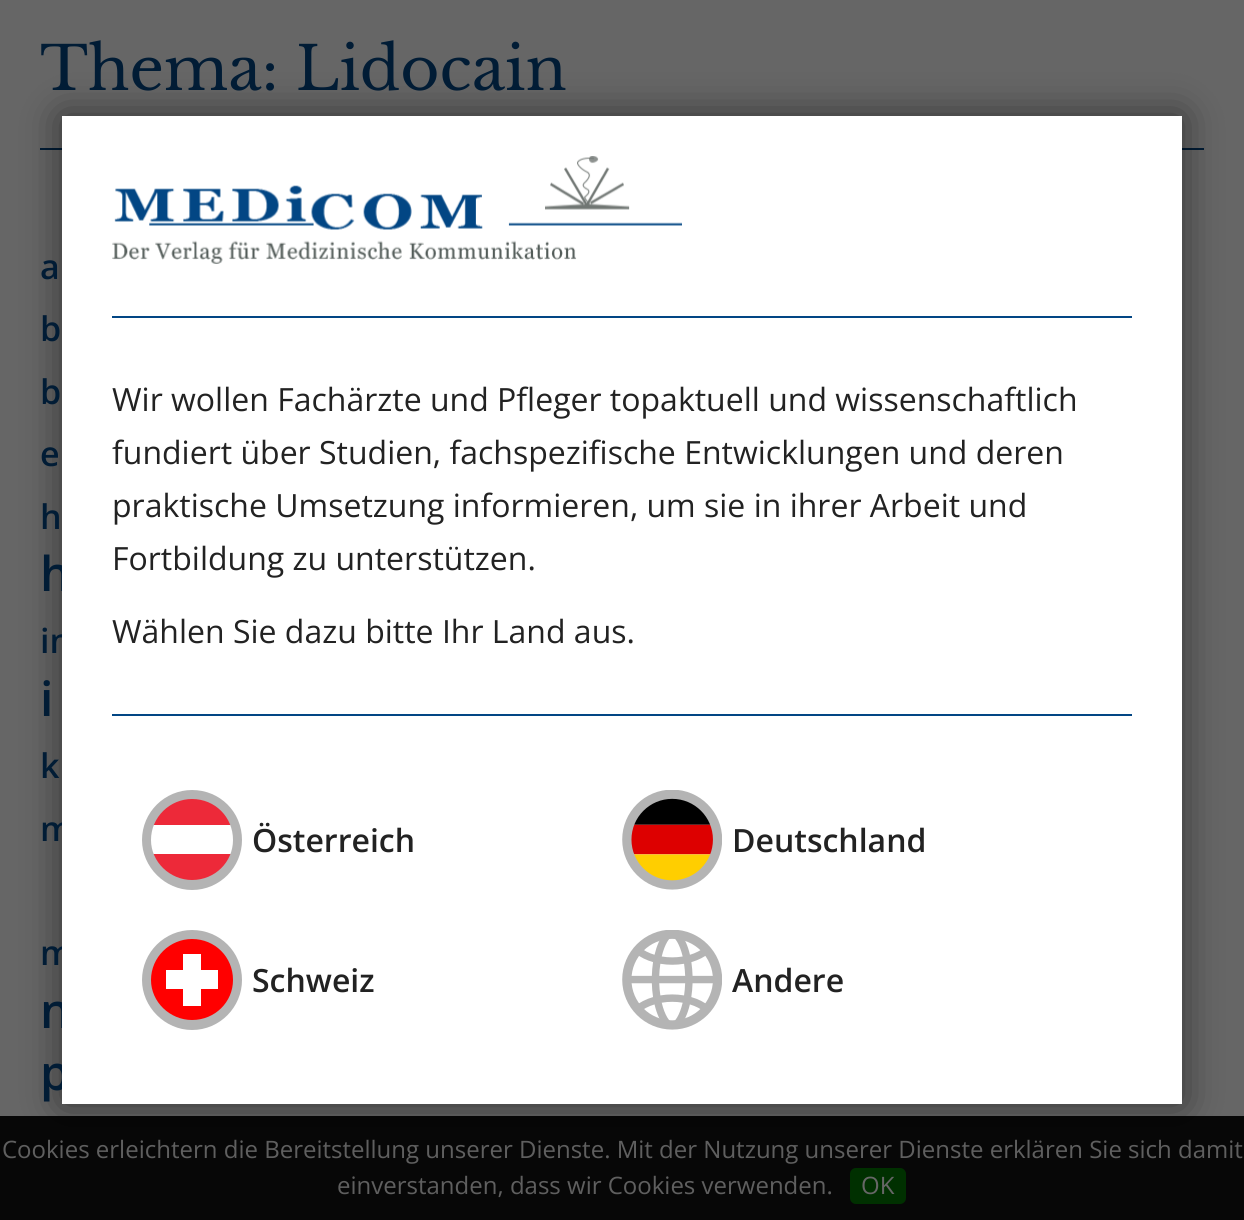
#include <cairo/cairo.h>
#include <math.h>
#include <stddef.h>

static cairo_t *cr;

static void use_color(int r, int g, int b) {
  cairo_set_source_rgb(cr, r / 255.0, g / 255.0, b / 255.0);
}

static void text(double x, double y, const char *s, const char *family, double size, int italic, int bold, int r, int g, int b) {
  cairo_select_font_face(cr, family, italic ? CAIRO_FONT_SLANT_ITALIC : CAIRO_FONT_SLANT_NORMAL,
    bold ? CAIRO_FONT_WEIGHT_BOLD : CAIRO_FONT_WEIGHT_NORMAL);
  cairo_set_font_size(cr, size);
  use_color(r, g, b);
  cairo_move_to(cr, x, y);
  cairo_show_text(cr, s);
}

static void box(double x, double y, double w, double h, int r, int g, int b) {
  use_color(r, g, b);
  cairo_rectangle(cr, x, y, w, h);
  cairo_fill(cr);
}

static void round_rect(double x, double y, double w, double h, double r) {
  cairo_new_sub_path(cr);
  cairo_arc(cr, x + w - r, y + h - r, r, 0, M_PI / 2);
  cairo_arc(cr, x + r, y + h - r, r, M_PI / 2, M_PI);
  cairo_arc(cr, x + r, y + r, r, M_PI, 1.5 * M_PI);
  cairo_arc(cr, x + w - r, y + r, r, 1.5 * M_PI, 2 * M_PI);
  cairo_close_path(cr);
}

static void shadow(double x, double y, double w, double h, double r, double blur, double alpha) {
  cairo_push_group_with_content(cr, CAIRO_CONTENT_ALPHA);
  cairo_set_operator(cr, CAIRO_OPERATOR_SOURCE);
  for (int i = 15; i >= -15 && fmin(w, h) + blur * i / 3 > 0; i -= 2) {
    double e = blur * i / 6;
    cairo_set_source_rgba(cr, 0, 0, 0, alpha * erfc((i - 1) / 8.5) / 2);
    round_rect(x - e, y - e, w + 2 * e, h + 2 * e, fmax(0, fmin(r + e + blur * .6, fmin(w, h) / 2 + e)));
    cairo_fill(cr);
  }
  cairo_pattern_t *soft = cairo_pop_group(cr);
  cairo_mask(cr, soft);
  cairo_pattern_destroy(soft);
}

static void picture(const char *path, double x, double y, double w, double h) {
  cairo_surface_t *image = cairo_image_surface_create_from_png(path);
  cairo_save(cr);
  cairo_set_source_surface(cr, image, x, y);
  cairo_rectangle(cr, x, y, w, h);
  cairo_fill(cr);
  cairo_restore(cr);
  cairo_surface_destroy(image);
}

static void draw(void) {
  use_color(102, 102, 102);
  cairo_paint(cr);
  box(40, 148, 1164, 2, 1, 28, 53);
  box(0, 1116, 1244, 104, 7, 7, 7);
  use_color(0, 0, 0);
  shadow(62, 116, 1120, 988, 0, 20, 0.5);
  use_color(0, 48, 0);
  round_rect(850, 1168, 56, 36, 6);
  cairo_fill(cr);
  text(40, 90, "Thema: Lidocain", "Libre Baskerville", 60, 0, 0, 1, 28, 53);
  text(40, 279, "a", "Open Sans SemiBold", 34, 0, 0, 1, 28, 53);
  text(40, 341, "b", "Open Sans SemiBold", 34, 0, 0, 1, 28, 53);
  text(40, 404, "b", "Open Sans SemiBold", 34, 0, 0, 1, 28, 53);
  text(40, 466, "e", "Open Sans SemiBold", 34, 0, 0, 1, 28, 53);
  text(40, 529, "h", "Open Sans SemiBold", 34, 0, 0, 1, 28, 53);
  text(40, 591, "h", "Open Sans SemiBold", 48, 0, 0, 1, 28, 53);
  text(40, 653, "in", "Open Sans SemiBold", 34, 0, 0, 1, 28, 53);
  text(40, 716, "i", "Open Sans SemiBold", 48, 0, 0, 1, 28, 53);
  text(40, 778, "k", "Open Sans SemiBold", 34, 0, 0, 1, 28, 53);
  text(40, 841, "m", "Open Sans SemiBold", 34, 0, 0, 1, 28, 53);
  text(40, 965, "m", "Open Sans SemiBold", 34, 0, 0, 1, 28, 53);
  text(40, 1028, "n", "Open Sans SemiBold", 48, 0, 0, 1, 28, 53);
  text(40, 1090, "p", "Open Sans SemiBold", 48, 0, 0, 1, 28, 53);
  box(62, 116, 1120, 988, 255, 255, 255);
  picture("img_01.png", 112, 156, 570, 108);
  box(112, 316, 1020, 2, 2, 70, 132);
  box(112, 714, 1020, 2, 2, 70, 132);
  text(112, 411, "Wir wollen Fachärzte und Pfleger topaktuell und wissenschaftlich", "Open Sans", 32, 0, 0, 34, 34, 34);
  text(112, 464, "fundiert über Studien, fachspezifische Entwicklungen und deren", "Open Sans", 32, 0, 0, 34, 34, 34);
  text(112, 517, "praktische Umsetzung informieren, um sie in ihrer Arbeit und", "Open Sans", 32, 0, 0, 34, 34, 34);
  text(112, 570, "Fortbildung zu unterstützen.", "Open Sans", 32, 0, 0, 34, 34, 34);
  text(112, 643, "Wählen Sie dazu bitte Ihr Land aus.", "Open Sans", 32, 0, 0, 34, 34, 34);
  use_color(237, 41, 57);
  cairo_new_path(cr);
  cairo_arc(cr, 192, 839.5, 44.5, 0, 2 * M_PI);
  cairo_fill(cr);
  use_color(255, 255, 255);
  cairo_new_path(cr);
  cairo_move_to(cr, 150, 825);
  cairo_curve_to(cr, 147, 834, 147, 845, 150, 854);
  cairo_line_to(cr, 234, 854);
  cairo_curve_to(cr, 238, 845, 238, 834, 234, 825);
  cairo_close_path(cr);
  cairo_fill(cr);
  use_color(180, 180, 180);
  cairo_new_path(cr);
  cairo_move_to(cr, 192, 799);
  cairo_curve_to(cr, 215, 799, 233, 817, 233, 840);
  cairo_curve_to(cr, 233, 862, 215, 880, 192, 880);
  cairo_curve_to(cr, 170, 880, 151, 862, 151, 840);
  cairo_curve_to(cr, 151, 817, 170, 799, 192, 799);
  cairo_move_to(cr, 192, 790);
  cairo_curve_to(cr, 165, 790, 142, 812, 142, 840);
  cairo_curve_to(cr, 142, 867, 165, 890, 192, 890);
  cairo_curve_to(cr, 220, 890, 242, 867, 242, 840);
  cairo_curve_to(cr, 242, 812, 220, 790, 192, 790);
  cairo_close_path(cr);
  cairo_fill(cr);
  text(252, 852, "Österreich", "Open Sans SemiBold", 32, 0, 0, 34, 34, 34);
  picture("img_02.png", 622, 790, 100, 100);
  text(732, 852, "Deutschland", "Open Sans SemiBold", 32, 0, 0, 34, 34, 34);
  use_color(255, 0, 0);
  cairo_new_path(cr);
  cairo_arc(cr, 192, 979.5, 44.5, 0, 2 * M_PI);
  cairo_fill(cr);
  box(166, 970, 52, 19, 255, 255, 255);
  box(183, 954, 18, 52, 255, 255, 255);
  use_color(180, 180, 180);
  cairo_new_path(cr);
  cairo_move_to(cr, 192, 939);
  cairo_curve_to(cr, 215, 939, 233, 957, 233, 980);
  cairo_curve_to(cr, 233, 1002, 215, 1020, 192, 1020);
  cairo_curve_to(cr, 170, 1020, 151, 1002, 151, 980);
  cairo_curve_to(cr, 151, 957, 170, 939, 192, 939);
  cairo_move_to(cr, 192, 930);
  cairo_curve_to(cr, 165, 930, 142, 952, 142, 980);
  cairo_curve_to(cr, 142, 1007, 165, 1030, 192, 1030);
  cairo_curve_to(cr, 220, 1030, 242, 1007, 242, 980);
  cairo_curve_to(cr, 242, 952, 220, 930, 192, 930);
  cairo_close_path(cr);
  cairo_fill(cr);
  text(252, 992, "Schweiz", "Open Sans SemiBold", 32, 0, 0, 34, 34, 34);
  picture("img_03.png", 622, 930, 100, 100);
  text(732, 992, "Andere", "Open Sans SemiBold", 32, 0, 0, 34, 34, 34);
  text(2, 1158, "Cookies erleichtern die Bereitstellung unserer Dienste. Mit der Nutzung unserer Dienste erklären Sie sich damit", "Open Sans", 24, 0, 0, 95, 95, 95);
  text(337, 1194, "einverstanden, dass wir Cookies verwenden.", "Open Sans", 24, 0, 0, 95, 95, 95);
  text(861, 1194, "OK", "Open Sans", 24, 0, 0, 102, 102, 102);
}

int main(void) {
  cairo_surface_t *surface = cairo_image_surface_create(CAIRO_FORMAT_RGB24, 1244, 1220);
  cr = cairo_create(surface);
  cairo_font_options_t *options = cairo_font_options_create();
  cairo_font_options_set_hint_metrics(options, CAIRO_HINT_METRICS_OFF);
  cairo_font_options_set_hint_style(options, CAIRO_HINT_STYLE_NONE);
  cairo_set_font_options(cr, options);
  cairo_set_miter_limit(cr, 4);
  draw();
  cairo_surface_write_to_png(surface, "out.png");
  cairo_font_options_destroy(options);
  cairo_destroy(cr);
  cairo_surface_destroy(surface);
  return 0;
}
